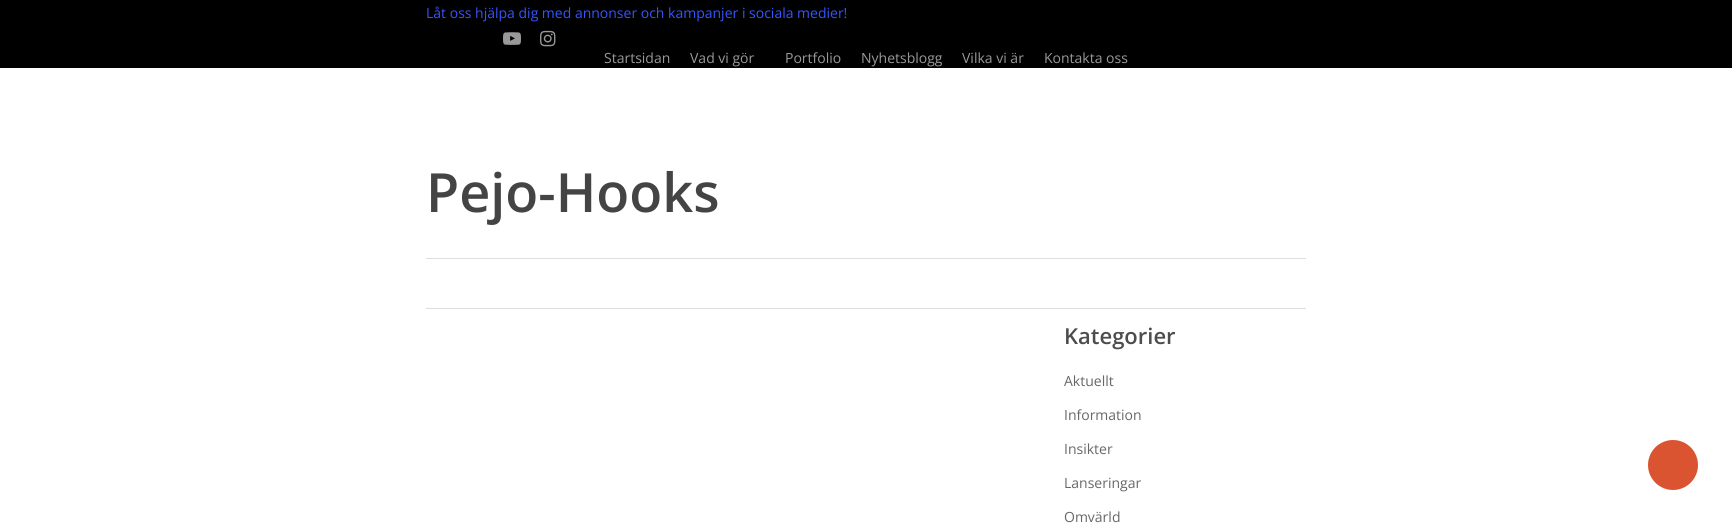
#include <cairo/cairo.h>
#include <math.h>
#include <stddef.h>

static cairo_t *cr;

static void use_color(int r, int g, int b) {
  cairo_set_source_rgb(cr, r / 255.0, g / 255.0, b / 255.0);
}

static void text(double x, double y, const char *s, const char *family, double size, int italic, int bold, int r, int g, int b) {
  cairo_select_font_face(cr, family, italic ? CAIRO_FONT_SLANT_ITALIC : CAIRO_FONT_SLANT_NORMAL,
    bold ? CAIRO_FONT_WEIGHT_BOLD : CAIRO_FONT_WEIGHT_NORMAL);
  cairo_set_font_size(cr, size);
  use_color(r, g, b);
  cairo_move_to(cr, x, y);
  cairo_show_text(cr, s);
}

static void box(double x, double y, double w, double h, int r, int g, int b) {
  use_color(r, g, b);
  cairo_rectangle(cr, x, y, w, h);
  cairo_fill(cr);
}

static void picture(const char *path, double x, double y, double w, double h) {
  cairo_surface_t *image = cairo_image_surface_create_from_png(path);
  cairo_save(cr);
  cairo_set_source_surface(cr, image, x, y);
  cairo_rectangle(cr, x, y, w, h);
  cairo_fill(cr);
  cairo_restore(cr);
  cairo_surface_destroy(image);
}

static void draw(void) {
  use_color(255, 255, 255);
  cairo_paint(cr);
  box(0, 0, 1732, 68, 0, 0, 0);
  picture("img_01.png", 503, 32, 18, 13);
  picture("img_02.png", 540, 30, 16, 17);
  box(426, 308, 880, 1, 221, 221, 221);
  box(426, 258, 880, 1, 221, 221, 221);
  use_color(219, 84, 50);
  cairo_arc(cr, 1673, 465, 25, 0, 2 * M_PI);
  cairo_fill(cr);
  text(426, 18, "Låt oss hjälpa dig med annonser och kampanjer i sociala medier!", "Open Sans", 14, 0, 0, 53, 85, 255);
  text(604, 63, "Startsidan", "Open Sans", 14, 0, 0, 153, 153, 153);
  text(690, 63, "Vad vi gör", "Open Sans", 14, 0, 0, 153, 153, 153);
  text(785, 63, "Portfolio", "Open Sans", 14, 0, 0, 153, 153, 153);
  text(861, 63, "Nyhetsblogg", "Open Sans", 14, 0, 0, 153, 153, 153);
  text(962, 63, "Vilka vi är", "Open Sans", 14, 0, 0, 153, 153, 153);
  text(1044, 63, "Kontakta oss", "Open Sans", 14, 0, 0, 153, 153, 153);
  text(426, 212, "Pejo-Hooks", "Open Sans SemiBold", 54, 0, 0, 68, 68, 68);
  text(1064, 344, "Kategorier", "Open Sans SemiBold", 22, 0, 0, 77, 77, 77);
  text(1064, 386, "Aktuellt", "Open Sans", 14, 0, 0, 103, 103, 103);
  text(1064, 420, "Information", "Open Sans", 14, 0, 0, 103, 103, 103);
  text(1064, 454, "Insikter", "Open Sans", 14, 0, 0, 103, 103, 103);
  text(1064, 488, "Lanseringar", "Open Sans", 14, 0, 0, 103, 103, 103);
  text(1064, 522, "Omvärld", "Open Sans", 14, 0, 0, 103, 103, 103);
}

int main(void) {
  cairo_surface_t *surface = cairo_image_surface_create(CAIRO_FORMAT_RGB24, 1732, 524);
  cr = cairo_create(surface);
  cairo_font_options_t *options = cairo_font_options_create();
  cairo_font_options_set_hint_metrics(options, CAIRO_HINT_METRICS_OFF);
  cairo_font_options_set_hint_style(options, CAIRO_HINT_STYLE_NONE);
  cairo_set_font_options(cr, options);
  cairo_set_miter_limit(cr, 4);
  draw();
  cairo_surface_write_to_png(surface, "out.png");
  cairo_font_options_destroy(options);
  cairo_destroy(cr);
  cairo_surface_destroy(surface);
  return 0;
}
